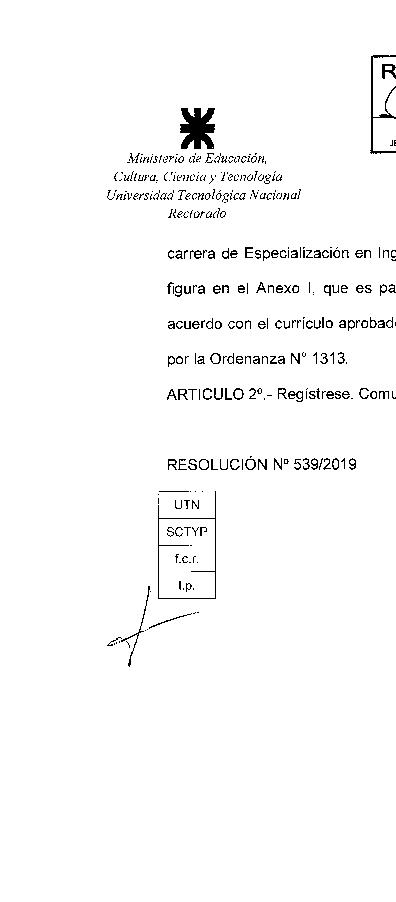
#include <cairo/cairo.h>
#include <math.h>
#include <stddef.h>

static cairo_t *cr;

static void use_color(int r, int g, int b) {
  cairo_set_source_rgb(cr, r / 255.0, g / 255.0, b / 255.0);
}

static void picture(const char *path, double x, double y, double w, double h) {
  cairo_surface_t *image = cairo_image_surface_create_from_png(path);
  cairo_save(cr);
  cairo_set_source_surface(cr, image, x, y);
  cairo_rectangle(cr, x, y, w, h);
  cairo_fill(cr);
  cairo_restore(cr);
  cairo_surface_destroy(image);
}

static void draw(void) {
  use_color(255, 255, 255);
  cairo_paint(cr);
  picture("img_01.png", 104, 48, 292, 624);
}

int main(void) {
  cairo_surface_t *surface = cairo_image_surface_create(CAIRO_FORMAT_RGB24, 396, 902);
  cr = cairo_create(surface);
  cairo_font_options_t *options = cairo_font_options_create();
  cairo_font_options_set_hint_metrics(options, CAIRO_HINT_METRICS_OFF);
  cairo_font_options_set_hint_style(options, CAIRO_HINT_STYLE_NONE);
  cairo_set_font_options(cr, options);
  cairo_set_miter_limit(cr, 4);
  draw();
  cairo_surface_write_to_png(surface, "out.png");
  cairo_font_options_destroy(options);
  cairo_destroy(cr);
  cairo_surface_destroy(surface);
  return 0;
}
